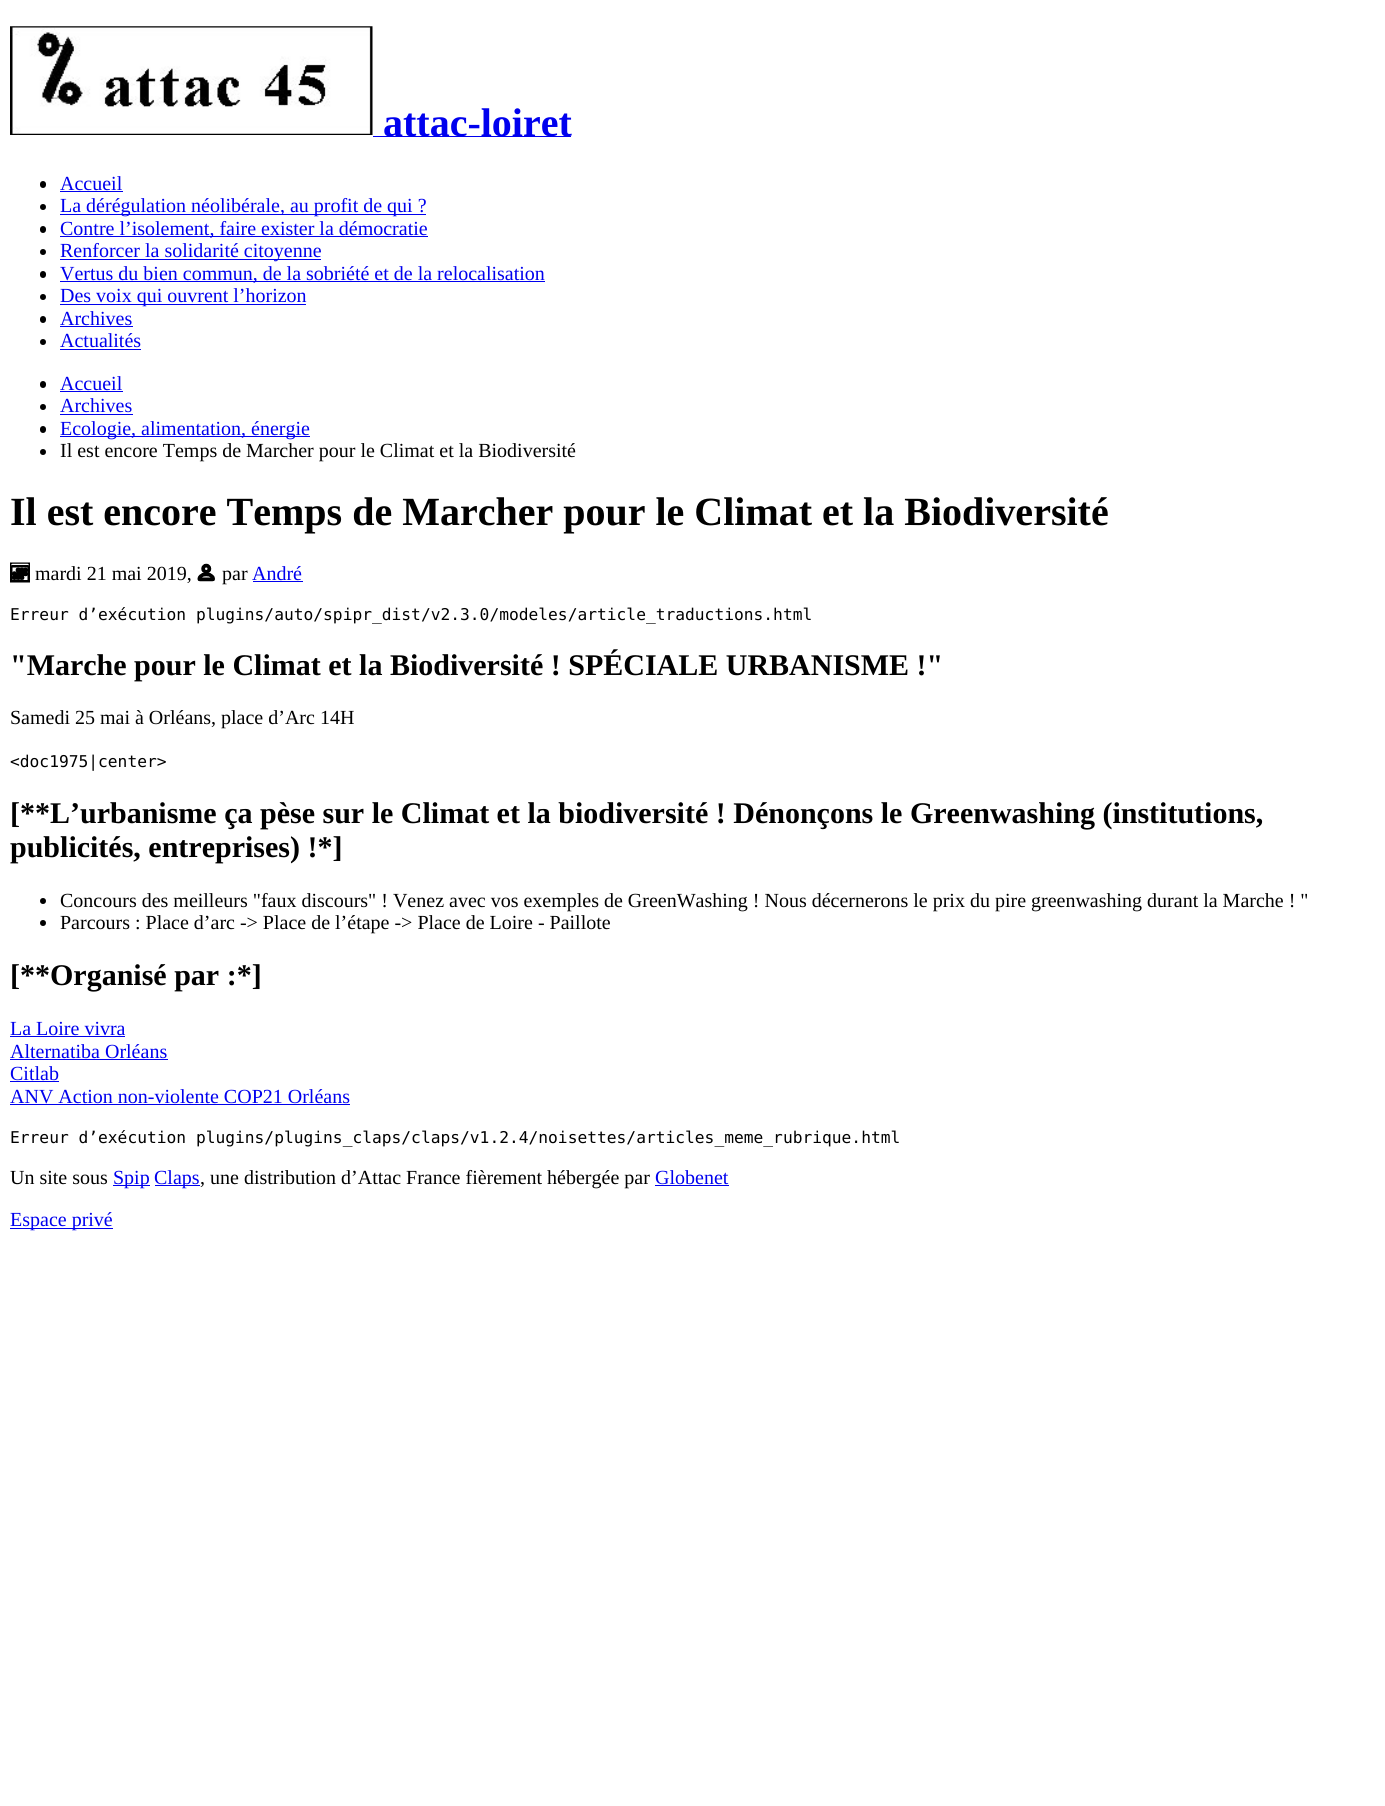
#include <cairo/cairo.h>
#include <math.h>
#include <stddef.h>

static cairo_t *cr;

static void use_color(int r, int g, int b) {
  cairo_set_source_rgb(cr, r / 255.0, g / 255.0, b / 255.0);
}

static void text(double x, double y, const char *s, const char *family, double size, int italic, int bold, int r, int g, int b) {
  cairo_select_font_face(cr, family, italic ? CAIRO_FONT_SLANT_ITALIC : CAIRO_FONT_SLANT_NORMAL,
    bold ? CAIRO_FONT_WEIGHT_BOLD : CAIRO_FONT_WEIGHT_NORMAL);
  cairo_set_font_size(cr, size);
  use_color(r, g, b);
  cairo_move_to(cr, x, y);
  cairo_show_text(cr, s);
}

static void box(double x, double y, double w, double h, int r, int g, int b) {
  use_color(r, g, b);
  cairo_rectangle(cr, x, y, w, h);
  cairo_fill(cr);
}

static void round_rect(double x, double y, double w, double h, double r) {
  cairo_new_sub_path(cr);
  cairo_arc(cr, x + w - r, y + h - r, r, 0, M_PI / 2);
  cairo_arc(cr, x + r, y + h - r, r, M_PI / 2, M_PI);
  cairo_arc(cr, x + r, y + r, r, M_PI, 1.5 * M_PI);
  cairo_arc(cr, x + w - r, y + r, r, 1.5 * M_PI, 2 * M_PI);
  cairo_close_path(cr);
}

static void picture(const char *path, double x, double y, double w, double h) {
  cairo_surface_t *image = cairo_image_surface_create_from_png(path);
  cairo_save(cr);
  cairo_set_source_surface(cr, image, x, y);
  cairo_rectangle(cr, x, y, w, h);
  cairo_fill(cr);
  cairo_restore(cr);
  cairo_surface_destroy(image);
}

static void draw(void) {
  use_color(255, 255, 255);
  cairo_paint(cr);
  picture("img_01.png", 10, 26, 363, 109);
  box(373, 136, 198, 1, 0, 0, 238);
  use_color(0, 0, 0);
  round_rect(40, 181, 6, 7, 3);
  cairo_fill(cr);
  box(60, 191, 63, 1, 0, 0, 238);
  use_color(0, 0, 0);
  cairo_arc(cr, 43, 207, 3, 0, 2 * M_PI);
  cairo_fill(cr);
  box(60, 214, 366, 1, 0, 0, 238);
  use_color(0, 0, 0);
  round_rect(40, 226, 6, 7, 3);
  cairo_fill(cr);
  box(60, 236, 368, 1, 0, 0, 238);
  use_color(0, 0, 0);
  cairo_arc(cr, 43, 252, 3, 0, 2 * M_PI);
  cairo_fill(cr);
  box(60, 259, 261, 1, 0, 0, 238);
  use_color(0, 0, 0);
  round_rect(40, 271, 6, 7, 3);
  cairo_fill(cr);
  box(60, 281, 485, 1, 0, 0, 238);
  use_color(0, 0, 0);
  cairo_arc(cr, 43, 297, 3, 0, 2 * M_PI);
  cairo_fill(cr);
  box(60, 304, 246, 1, 0, 0, 238);
  use_color(0, 0, 0);
  round_rect(40, 316, 6, 7, 3);
  cairo_fill(cr);
  box(60, 326, 73, 1, 0, 0, 238);
  use_color(0, 0, 0);
  cairo_arc(cr, 43, 342, 3, 0, 2 * M_PI);
  cairo_fill(cr);
  box(60, 349, 81, 1, 0, 0, 238);
  use_color(0, 0, 0);
  round_rect(40, 381, 6, 7, 3);
  cairo_fill(cr);
  box(60, 391, 63, 1, 0, 0, 238);
  use_color(0, 0, 0);
  cairo_arc(cr, 43, 407, 3, 0, 2 * M_PI);
  cairo_fill(cr);
  box(60, 414, 73, 1, 0, 0, 238);
  use_color(0, 0, 0);
  round_rect(40, 426, 6, 7, 3);
  cairo_fill(cr);
  box(60, 436, 250, 1, 0, 0, 238);
  use_color(0, 0, 0);
  cairo_arc(cr, 43, 452, 3, 0, 2 * M_PI);
  cairo_fill(cr);
  picture("img_02.png", 10, 562, 20, 21);
  picture("img_03.png", 197, 563, 18, 19);
  box(253, 581, 50, 1, 0, 0, 238);
  use_color(0, 0, 0);
  cairo_arc(cr, 43, 901, 3, 0, 2 * M_PI);
  cairo_fill(cr);
  cairo_arc(cr, 43, 923, 3, 0, 2 * M_PI);
  cairo_fill(cr);
  box(10, 1036, 115, 1, 0, 0, 238);
  box(10, 1059, 158, 1, 0, 0, 238);
  box(10, 1081, 49, 1, 0, 0, 238);
  box(10, 1104, 340, 1, 0, 0, 238);
  box(113, 1185, 37, 1, 0, 0, 238);
  box(155, 1185, 45, 1, 0, 0, 238);
  box(655, 1185, 74, 1, 0, 0, 238);
  box(10, 1228, 103, 1, 0, 0, 238);
  text(383, 136, "attac-loiret", "Liberation Serif", 40, 0, 1, 0, 0, 238);
  text(60, 190, "Accueil", "Liberation Serif", 20, 0, 0, 0, 0, 238);
  text(60, 212, "La dérégulation néolibérale, au profit de qui ?", "Liberation Serif", 20, 0, 0, 0, 0, 238);
  text(60, 235, "Contre l’isolement, faire exister la démocratie", "Liberation Serif", 20, 0, 0, 0, 0, 238);
  text(60, 257, "Renforcer la solidarité citoyenne", "Liberation Serif", 20, 0, 0, 0, 0, 238);
  text(60, 280, "Vertus du bien commun, de la sobriété et de la relocalisation", "Liberation Serif", 20, 0, 0, 0, 0, 238);
  text(60, 302, "Des voix qui ouvrent l’horizon", "Liberation Serif", 20, 0, 0, 0, 0, 238);
  text(60, 325, "Archives", "Liberation Serif", 20, 0, 0, 0, 0, 238);
  text(60, 347, "Actualités", "Liberation Serif", 20, 0, 0, 0, 0, 238);
  text(60, 390, "Accueil", "Liberation Serif", 20, 0, 0, 0, 0, 238);
  text(60, 412, "Archives", "Liberation Serif", 20, 0, 0, 0, 0, 238);
  text(60, 435, "Ecologie, alimentation, énergie", "Liberation Serif", 20, 0, 0, 0, 0, 238);
  text(60, 457, "Il est encore Temps de Marcher pour le Climat et la Biodiversité", "Liberation Serif", 20, 0, 0, 0, 0, 0);
  text(10, 525, "Il est encore Temps de Marcher pour le Climat et la Biodiversité", "Liberation Serif", 40, 0, 1, 0, 0, 0);
  text(35, 580, "mardi 21 mai 2019,", "Liberation Serif", 20, 0, 0, 0, 0, 0);
  text(222, 580, "par", "Liberation Serif", 20, 0, 0, 0, 0, 0);
  text(252, 580, "André", "Liberation Serif", 20, 0, 0, 0, 0, 238);
  text(10, 620, "Erreur d’exécution plugins/auto/spipr_dist/v2.3.0/modeles/article_traductions.html", "DejaVu Sans Mono", 16.25, 0, 0, 0, 0, 0);
  text(10, 675, "\"Marche pour le Climat et la Biodiversité ! SPÉCIALE URBANISME !\"", "Liberation Serif", 30, 0, 1, 0, 0, 0);
  text(10, 724, "Samedi 25 mai à Orléans, place d’Arc 14H", "Liberation Serif", 20, 0, 0, 0, 0, 0);
  text(10, 767, "<doc1975|center>", "DejaVu Sans Mono", 16.25, 0, 0, 0, 0, 0);
  text(10, 823, "[**L’urbanisme ça pèse sur le Climat et la biodiversité ! Dénonçons le Greenwashing (institutions,", "Liberation Serif", 30, 0, 1, 0, 0, 0);
  text(10, 857, "publicités, entreprises) !*]", "Liberation Serif", 30, 0, 1, 0, 0, 0);
  text(60, 907, "Concours des meilleurs \"faux discours\" ! Venez avec vos exemples de GreenWashing ! Nous décernerons le prix du pire greenwashing durant la Marche ! \"", "Liberation Serif", 20, 0, 0, 0, 0, 0);
  text(60, 929, "Parcours : Place d’arc -> Place de l’étape -> Place de Loire - Paillote", "Liberation Serif", 20, 0, 0, 0, 0, 0);
  text(10, 985, "[**Organisé par :*]", "Liberation Serif", 30, 0, 1, 0, 0, 0);
  text(10, 1035, "La Loire vivra", "Liberation Serif", 20, 0, 0, 0, 0, 238);
  text(10, 1058, "Alternatiba Orléans", "Liberation Serif", 20, 0, 0, 0, 0, 238);
  text(10, 1080, "Citlab", "Liberation Serif", 20, 0, 0, 0, 0, 238);
  text(10, 1103, "ANV Action non-violente COP21 Orléans", "Liberation Serif", 20, 0, 0, 0, 0, 238);
  text(10, 1143, "Erreur d’exécution plugins/plugins_claps/claps/v1.2.4/noisettes/articles_meme_rubrique.html", "DejaVu Sans Mono", 16.25, 0, 0, 0, 0, 0);
  text(10, 1184, "Un site sous", "Liberation Serif", 20, 0, 0, 0, 0, 0);
  text(113, 1184, "Spip", "Liberation Serif", 20, 0, 0, 0, 0, 238);
  text(154, 1184, "Claps", "Liberation Serif", 20, 0, 0, 0, 0, 238);
  text(200, 1184, ", une distribution d’Attac France fièrement hébergée par", "Liberation Serif", 20, 0, 0, 0, 0, 0);
  text(655, 1184, "Globenet", "Liberation Serif", 20, 0, 0, 0, 0, 238);
  text(10, 1226, "Espace privé", "Liberation Serif", 20, 0, 0, 0, 0, 238);
}

int main(void) {
  cairo_surface_t *surface = cairo_image_surface_create(CAIRO_FORMAT_RGB24, 1385, 1806);
  cr = cairo_create(surface);
  cairo_font_options_t *options = cairo_font_options_create();
  cairo_font_options_set_hint_metrics(options, CAIRO_HINT_METRICS_OFF);
  cairo_font_options_set_hint_style(options, CAIRO_HINT_STYLE_NONE);
  cairo_set_font_options(cr, options);
  cairo_set_miter_limit(cr, 4);
  draw();
  cairo_surface_write_to_png(surface, "out.png");
  cairo_font_options_destroy(options);
  cairo_destroy(cr);
  cairo_surface_destroy(surface);
  return 0;
}
